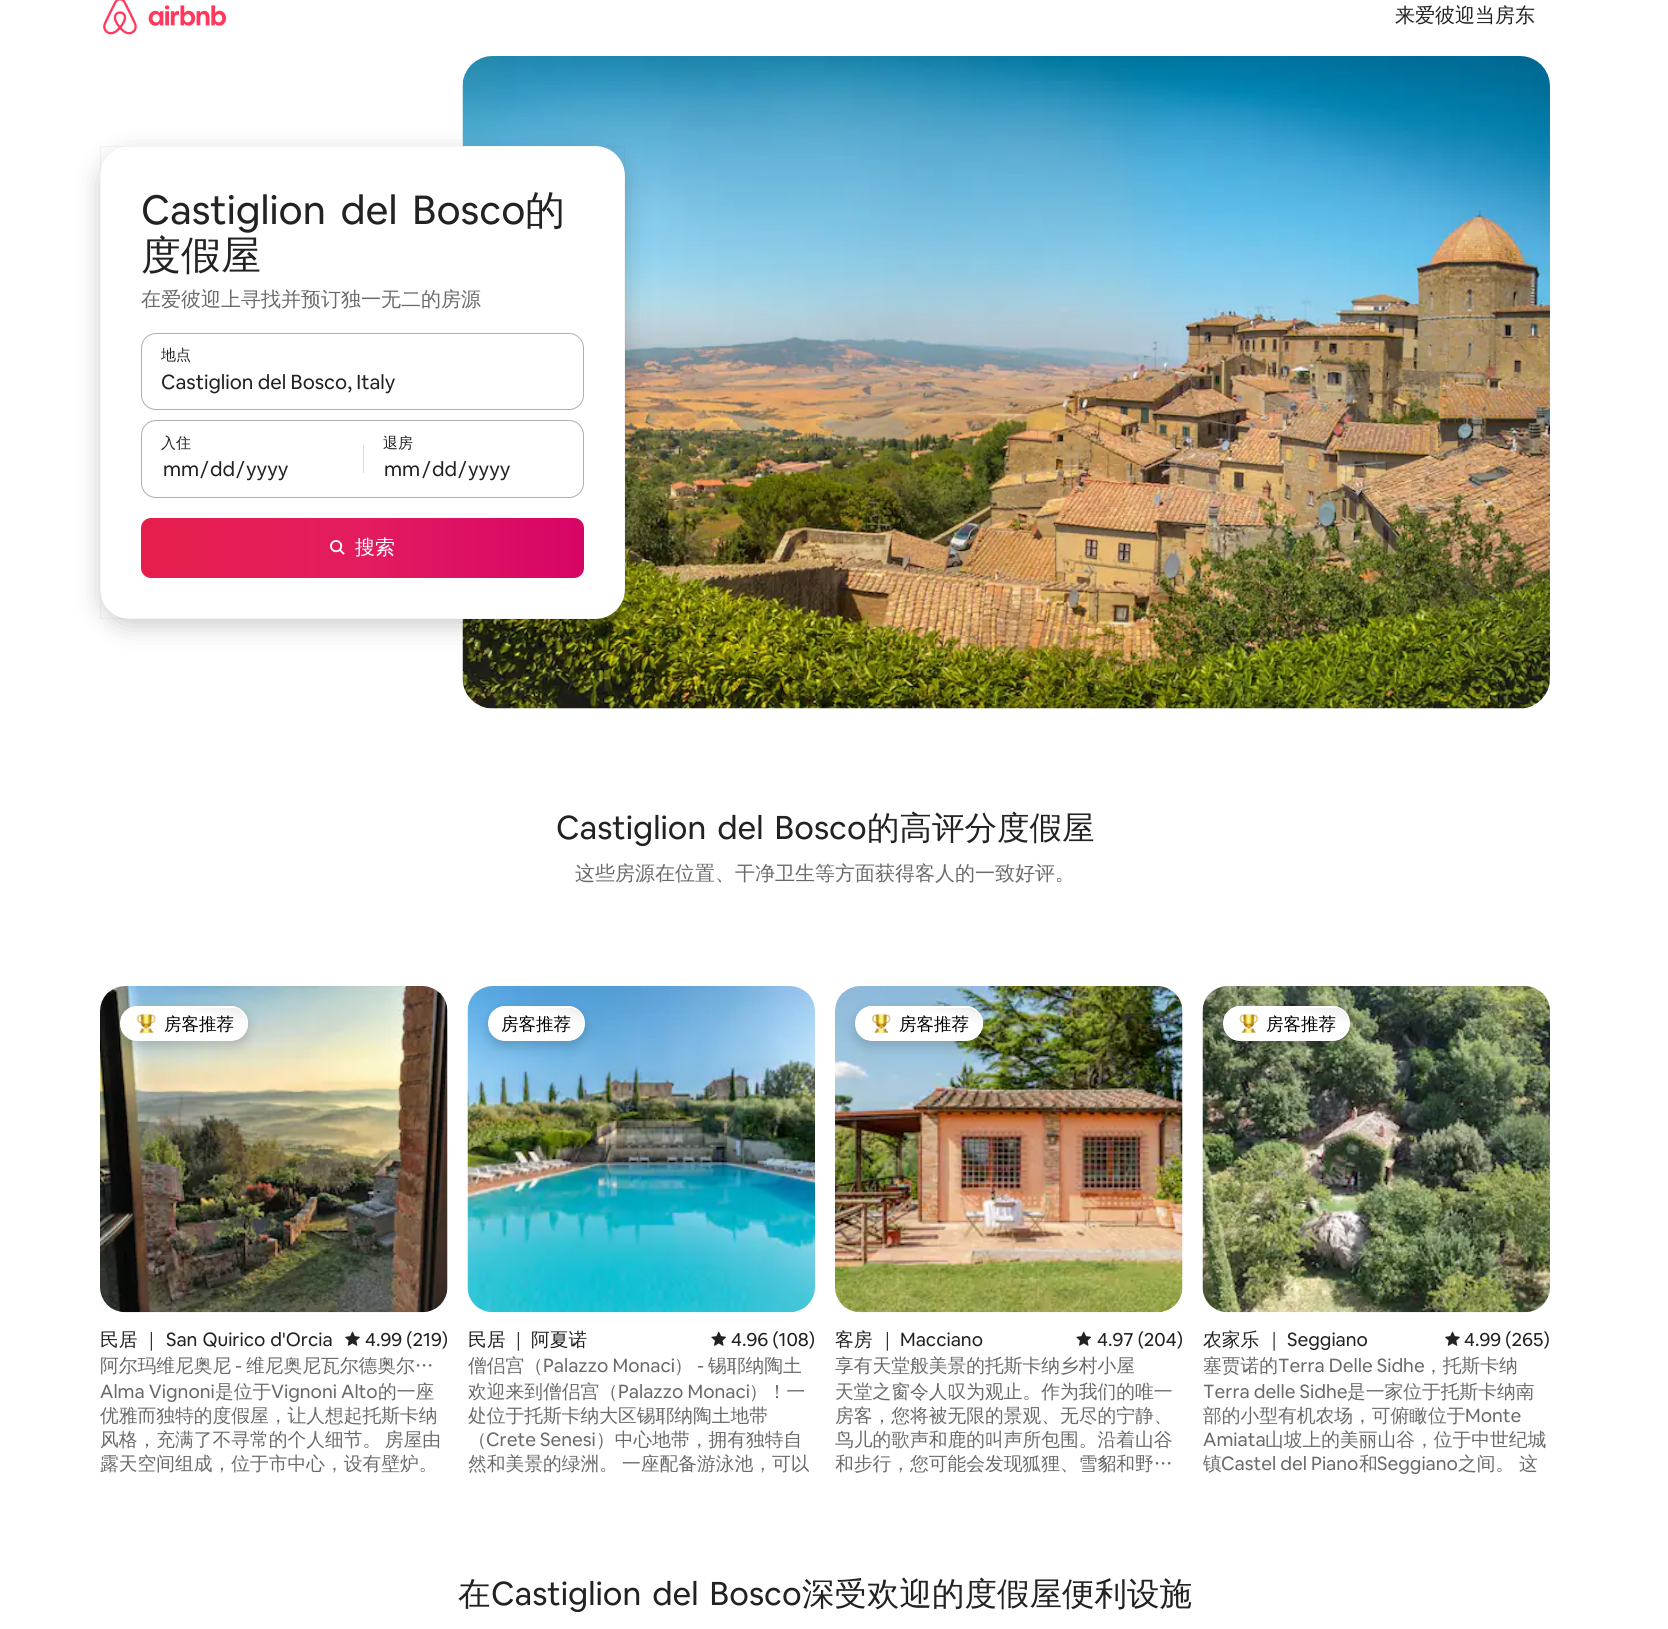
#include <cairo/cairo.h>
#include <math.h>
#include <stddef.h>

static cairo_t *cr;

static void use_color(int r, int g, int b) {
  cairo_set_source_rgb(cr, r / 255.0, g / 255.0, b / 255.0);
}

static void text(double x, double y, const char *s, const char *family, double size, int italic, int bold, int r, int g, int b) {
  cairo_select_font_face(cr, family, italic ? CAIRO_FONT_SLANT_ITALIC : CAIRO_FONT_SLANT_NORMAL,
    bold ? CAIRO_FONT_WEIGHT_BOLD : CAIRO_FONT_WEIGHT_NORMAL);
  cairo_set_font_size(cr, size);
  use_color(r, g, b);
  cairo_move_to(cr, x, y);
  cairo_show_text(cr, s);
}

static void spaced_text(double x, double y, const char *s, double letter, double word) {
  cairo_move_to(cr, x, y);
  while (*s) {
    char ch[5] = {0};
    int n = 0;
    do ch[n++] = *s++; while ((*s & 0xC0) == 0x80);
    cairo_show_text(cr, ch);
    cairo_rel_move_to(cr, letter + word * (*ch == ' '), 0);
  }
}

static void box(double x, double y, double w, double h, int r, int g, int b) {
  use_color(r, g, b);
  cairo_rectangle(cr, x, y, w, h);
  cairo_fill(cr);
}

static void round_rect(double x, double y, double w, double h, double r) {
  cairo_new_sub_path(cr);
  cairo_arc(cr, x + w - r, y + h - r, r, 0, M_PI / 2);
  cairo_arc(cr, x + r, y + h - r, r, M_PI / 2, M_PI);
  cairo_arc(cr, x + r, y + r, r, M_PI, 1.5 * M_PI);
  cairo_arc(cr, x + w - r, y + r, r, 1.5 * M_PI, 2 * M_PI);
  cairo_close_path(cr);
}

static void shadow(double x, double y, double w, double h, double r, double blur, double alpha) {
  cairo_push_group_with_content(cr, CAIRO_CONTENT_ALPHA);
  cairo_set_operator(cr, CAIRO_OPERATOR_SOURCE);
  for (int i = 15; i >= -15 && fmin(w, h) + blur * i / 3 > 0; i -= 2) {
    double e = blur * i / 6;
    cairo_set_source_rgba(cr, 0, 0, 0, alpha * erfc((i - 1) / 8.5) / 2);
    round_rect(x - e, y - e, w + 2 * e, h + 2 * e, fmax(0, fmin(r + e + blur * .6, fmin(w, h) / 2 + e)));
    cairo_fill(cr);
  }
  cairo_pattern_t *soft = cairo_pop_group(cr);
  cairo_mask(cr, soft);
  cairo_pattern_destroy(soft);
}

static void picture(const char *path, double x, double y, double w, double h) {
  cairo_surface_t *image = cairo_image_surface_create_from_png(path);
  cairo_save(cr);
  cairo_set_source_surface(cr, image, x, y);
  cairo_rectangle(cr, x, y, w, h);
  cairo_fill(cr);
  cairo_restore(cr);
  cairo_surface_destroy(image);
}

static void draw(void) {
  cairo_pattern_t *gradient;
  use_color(255, 255, 255);
  cairo_paint(cr);
  picture("img_01.png", 103, 0, 34, 35);
  picture("img_02.png", 148, 5, 78, 21);
  picture("img_04.png", 462, 56, 1088, 653);
  use_color(0, 0, 0);
  shadow(100, 154, 525, 472, 30, 12.5, 0.2);
  use_color(255, 255, 255);
  round_rect(100, 146, 525, 473, 30);
  cairo_fill(cr);
  cairo_rectangle(cr, 100.5, 146.5, 524, 472);
  cairo_set_source_rgba(cr, 0, 0, 0, 0.04);
  cairo_set_line_width(cr, 1);
  cairo_stroke(cr);
  round_rect(141.5, 333.5, 442, 76, 14.5);
  use_color(176, 176, 176);
  cairo_stroke(cr);
  round_rect(141.5, 420.5, 442, 77, 14.5);
  cairo_stroke(cr);
  box(363, 445, 1, 28, 221, 221, 221);
  gradient = cairo_pattern_create_linear(141, 548, 584, 548);
  cairo_pattern_add_color_stop_rgba(gradient, 0, 0.902, 0.118, 0.302, 1);
  cairo_pattern_add_color_stop_rgba(gradient, 0.5, 0.89, 0.11, 0.373, 1);
  cairo_pattern_add_color_stop_rgba(gradient, 1, 0.843, 0.016, 0.4, 1);
  cairo_set_source(cr, gradient);
  cairo_pattern_destroy(gradient);
  round_rect(141, 518, 443, 60, 10);
  cairo_fill(cr);
  picture("img_03.png", 330, 540, 15, 15);
  picture("img_05.png", 100, 986, 348, 327);
  use_color(0, 0, 0);
  shadow(120, 1011, 128, 35, 17.5, 6, 0.16);
  cairo_save(cr);
  round_rect(120, 1006, 128, 35, 17.5);
  cairo_clip(cr);
  gradient = cairo_pattern_create_linear(176, 1022, 192, 961);
  cairo_pattern_add_color_stop_rgba(gradient, 0, 0.945, 0.945, 0.945, 1);
  cairo_pattern_add_color_stop_rgba(gradient, 0.11, 1, 1, 1, 1);
  cairo_pattern_add_color_stop_rgba(gradient, 0.7, 1, 1, 1, 1);
  cairo_pattern_add_color_stop_rgba(gradient, 0.94, 0.937, 0.937, 0.937, 1);
  cairo_set_source(cr, gradient);
  cairo_pattern_destroy(gradient);
  cairo_rectangle(cr, 121, 1006, 125, 2);
  cairo_fill(cr);
  gradient = cairo_pattern_create_linear(176, 1054, 192, 993);
  cairo_pattern_add_color_stop_rgba(gradient, 0, 0.945, 0.945, 0.945, 1);
  cairo_pattern_add_color_stop_rgba(gradient, 0.11, 1, 1, 1, 1);
  cairo_pattern_add_color_stop_rgba(gradient, 0.7, 1, 1, 1, 1);
  cairo_pattern_add_color_stop_rgba(gradient, 0.94, 0.937, 0.937, 0.937, 1);
  cairo_set_source(cr, gradient);
  cairo_pattern_destroy(gradient);
  cairo_rectangle(cr, 121, 1008, 125, 32);
  cairo_fill(cr);
  gradient = cairo_pattern_create_linear(301, 1054, 317, 993);
  cairo_pattern_add_color_stop_rgba(gradient, 0, 0.945, 0.945, 0.945, 1);
  cairo_pattern_add_color_stop_rgba(gradient, 0.11, 1, 1, 1, 1);
  cairo_pattern_add_color_stop_rgba(gradient, 0.7, 1, 1, 1, 1);
  cairo_pattern_add_color_stop_rgba(gradient, 0.94, 0.937, 0.937, 0.937, 1);
  cairo_set_source(cr, gradient);
  cairo_pattern_destroy(gradient);
  cairo_rectangle(cr, 246, 1008, 2, 32);
  cairo_fill(cr);
  cairo_restore(cr);
  round_rect(120.5, 1006.5, 127, 34, 17);
  use_color(255, 255, 255);
  cairo_stroke(cr);
  picture("img_06.png", 131, 1007, 25, 33);
  picture("img_07.png", 345, 1331, 15, 15);
  picture("img_08.png", 467, 986, 348, 327);
  use_color(0, 0, 0);
  shadow(488, 1011, 97, 35, 17.5, 6, 0.16);
  cairo_save(cr);
  round_rect(488, 1006, 97, 35, 17.5);
  cairo_clip(cr);
  gradient = cairo_pattern_create_linear(526, 1020, 546, 962);
  cairo_pattern_add_color_stop_rgba(gradient, 0, 0.945, 0.945, 0.945, 1);
  cairo_pattern_add_color_stop_rgba(gradient, 0.11, 1, 1, 1, 1);
  cairo_pattern_add_color_stop_rgba(gradient, 0.7, 1, 1, 1, 1);
  cairo_pattern_add_color_stop_rgba(gradient, 0.94, 0.937, 0.937, 0.937, 1);
  cairo_set_source(cr, gradient);
  cairo_pattern_destroy(gradient);
  cairo_rectangle(cr, 489, 1006, 95, 2);
  cairo_fill(cr);
  gradient = cairo_pattern_create_linear(526, 1053, 546, 995);
  cairo_pattern_add_color_stop_rgba(gradient, 0, 0.945, 0.945, 0.945, 1);
  cairo_pattern_add_color_stop_rgba(gradient, 0.11, 1, 1, 1, 1);
  cairo_pattern_add_color_stop_rgba(gradient, 0.7, 1, 1, 1, 1);
  cairo_pattern_add_color_stop_rgba(gradient, 0.94, 0.937, 0.937, 0.937, 1);
  cairo_set_source(cr, gradient);
  cairo_pattern_destroy(gradient);
  cairo_rectangle(cr, 489, 1008, 95, 32);
  cairo_fill(cr);
  cairo_restore(cr);
  round_rect(488.5, 1006.5, 96, 34, 17);
  use_color(255, 255, 255);
  cairo_stroke(cr);
  picture("img_09.png", 711, 1331, 15, 15);
  picture("img_10.png", 835, 986, 348, 327);
  use_color(0, 0, 0);
  shadow(855, 1011, 128, 35, 17.5, 6, 0.16);
  cairo_save(cr);
  round_rect(855, 1006, 128, 35, 17.5);
  cairo_clip(cr);
  gradient = cairo_pattern_create_linear(911, 1022, 927, 961);
  cairo_pattern_add_color_stop_rgba(gradient, 0, 0.945, 0.945, 0.945, 1);
  cairo_pattern_add_color_stop_rgba(gradient, 0.11, 1, 1, 1, 1);
  cairo_pattern_add_color_stop_rgba(gradient, 0.7, 1, 1, 1, 1);
  cairo_pattern_add_color_stop_rgba(gradient, 0.94, 0.937, 0.937, 0.937, 1);
  cairo_set_source(cr, gradient);
  cairo_pattern_destroy(gradient);
  cairo_rectangle(cr, 856, 1006, 125, 2);
  cairo_fill(cr);
  gradient = cairo_pattern_create_linear(911, 1054, 927, 993);
  cairo_pattern_add_color_stop_rgba(gradient, 0, 0.945, 0.945, 0.945, 1);
  cairo_pattern_add_color_stop_rgba(gradient, 0.11, 1, 1, 1, 1);
  cairo_pattern_add_color_stop_rgba(gradient, 0.7, 1, 1, 1, 1);
  cairo_pattern_add_color_stop_rgba(gradient, 0.94, 0.937, 0.937, 0.937, 1);
  cairo_set_source(cr, gradient);
  cairo_pattern_destroy(gradient);
  cairo_rectangle(cr, 856, 1008, 125, 32);
  cairo_fill(cr);
  gradient = cairo_pattern_create_linear(1036, 1054, 1052, 993);
  cairo_pattern_add_color_stop_rgba(gradient, 0, 0.945, 0.945, 0.945, 1);
  cairo_pattern_add_color_stop_rgba(gradient, 0.11, 1, 1, 1, 1);
  cairo_pattern_add_color_stop_rgba(gradient, 0.7, 1, 1, 1, 1);
  cairo_pattern_add_color_stop_rgba(gradient, 0.94, 0.937, 0.937, 0.937, 1);
  cairo_set_source(cr, gradient);
  cairo_pattern_destroy(gradient);
  cairo_rectangle(cr, 981, 1008, 2, 32);
  cairo_fill(cr);
  cairo_restore(cr);
  round_rect(855.5, 1006.5, 127, 34, 17);
  use_color(255, 255, 255);
  cairo_stroke(cr);
  picture("img_11.png", 866, 1007, 25, 33);
  picture("img_09.png", 1076, 1331, 15, 15);
  picture("img_12.png", 1202, 986, 348, 327);
  use_color(0, 0, 0);
  shadow(1223, 1011, 127, 35, 17.5, 6, 0.16);
  cairo_save(cr);
  round_rect(1223, 1006, 127, 35, 17.5);
  cairo_clip(cr);
  gradient = cairo_pattern_create_linear(1278, 1022, 1294, 961);
  cairo_pattern_add_color_stop_rgba(gradient, 0, 0.945, 0.945, 0.945, 1);
  cairo_pattern_add_color_stop_rgba(gradient, 0.11, 1, 1, 1, 1);
  cairo_pattern_add_color_stop_rgba(gradient, 0.7, 1, 1, 1, 1);
  cairo_pattern_add_color_stop_rgba(gradient, 0.94, 0.937, 0.937, 0.937, 1);
  cairo_set_source(cr, gradient);
  cairo_pattern_destroy(gradient);
  cairo_rectangle(cr, 1224, 1006, 125, 2);
  cairo_fill(cr);
  gradient = cairo_pattern_create_linear(1278, 1054, 1294, 993);
  cairo_pattern_add_color_stop_rgba(gradient, 0, 0.945, 0.945, 0.945, 1);
  cairo_pattern_add_color_stop_rgba(gradient, 0.11, 1, 1, 1, 1);
  cairo_pattern_add_color_stop_rgba(gradient, 0.7, 1, 1, 1, 1);
  cairo_pattern_add_color_stop_rgba(gradient, 0.94, 0.937, 0.937, 0.937, 1);
  cairo_set_source(cr, gradient);
  cairo_pattern_destroy(gradient);
  cairo_rectangle(cr, 1224, 1008, 125, 32);
  cairo_fill(cr);
  cairo_restore(cr);
  round_rect(1223.5, 1006.5, 126, 34, 17);
  use_color(255, 255, 255);
  cairo_stroke(cr);
  picture("img_13.png", 1234, 1013, 25, 26);
  picture("img_07.png", 1445, 1331, 15, 15);
  text(1395, 22, "来爱彼迎当房东", "WenQuanYi Zen Hei Medium", 20, 0, 0, 34, 34, 34);
  cairo_select_font_face(cr, "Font", CAIRO_FONT_SLANT_NORMAL, CAIRO_FONT_WEIGHT_NORMAL);
  cairo_set_font_size(cr, 40);
  spaced_text(141, 224, "Castiglion del Bosco", 0, 6);
  text(525, 224, "的", "WenQuanYi Zen Hei Medium", 40, 0, 0, 34, 34, 34);
  text(141, 269, "度假屋", "WenQuanYi Zen Hei Medium", 40, 0, 0, 34, 34, 34);
  text(141, 306, "在爱彼迎上寻找并预订独一无二的房源", "WenQuanYi Zen Hei Medium", 20, 0, 0, 106, 106, 106);
  text(161, 360, "地点", "WenQuanYi Zen Hei Medium", 15, 0, 0, 34, 34, 34);
  text(161, 389, "Castiglion del Bosco, Italy", "Font", 20, 0, 0, 34, 34, 34);
  text(161, 448, "入住", "WenQuanYi Zen Hei Medium", 15, 0, 0, 34, 34, 34);
  text(163, 476, "mm", "Font", 20, 0, 0, 34, 34, 34);
  text(200, 476, "/", "Font", 20, 0, 0, 34, 34, 34);
  text(210, 476, "dd", "Font", 20, 0, 0, 34, 34, 34);
  text(236, 476, "/", "Font", 20, 0, 0, 34, 34, 34);
  text(246, 476, "yyyy", "Font", 20, 0, 0, 34, 34, 34);
  text(383, 448, "退房", "WenQuanYi Zen Hei Medium", 15, 0, 0, 34, 34, 34);
  text(384, 476, "mm", "Font", 20, 0, 0, 34, 34, 34);
  text(422, 476, "/", "Font", 20, 0, 0, 34, 34, 34);
  text(432, 476, "dd", "Font", 20, 0, 0, 34, 34, 34);
  text(458, 476, "/", "Font", 20, 0, 0, 34, 34, 34);
  text(468, 476, "yyyy", "Font", 20, 0, 0, 34, 34, 34);
  text(355, 554, "搜索", "WenQuanYi Zen Hei Medium", 20, 0, 0, 255, 255, 255);
  cairo_select_font_face(cr, "Font", CAIRO_FONT_SLANT_NORMAL, CAIRO_FONT_WEIGHT_NORMAL);
  cairo_set_font_size(cr, 32.5);
  use_color(34, 34, 34);
  spaced_text(556, 839, "Castiglion del Bosco", 0, 4);
  text(867, 839, "的高评分度假屋", "WenQuanYi Zen Hei Medium", 32.5, 0, 0, 34, 34, 34);
  text(575, 880, "这些房源在位置、干净卫生等方面获得客人的一致好评。", "WenQuanYi Zen Hei Medium", 20, 0, 0, 106, 106, 106);
  text(164, 1030, "房客推荐", "WenQuanYi Zen Hei Medium", 17.5, 0, 0, 0, 0, 0);
  text(100, 1346, "民居", "WenQuanYi Zen Hei Medium", 18.75, 0, 0, 34, 34, 34);
  text(142, 1346, "｜", "WenQuanYi Zen Hei Medium", 18.75, 0, 0, 34, 34, 34);
  cairo_select_font_face(cr, "Font", CAIRO_FONT_SLANT_NORMAL, CAIRO_FONT_WEIGHT_NORMAL);
  spaced_text(166, 1346, "San Quirico d'Orcia", 0, 1);
  text(365, 1346, "4.99 (219)", "Font", 18.75, 0, 0, 34, 34, 34);
  text(100, 1372, "阿尔玛维尼奥尼", "WenQuanYi Zen Hei Medium", 18.75, 0, 0, 106, 106, 106);
  text(235, 1372, "-", "Font", 18.75, 0, 0, 106, 106, 106);
  text(246, 1372, "维尼奥尼瓦尔德奥尔…", "WenQuanYi Zen Hei Medium", 18.75, 0, 0, 106, 106, 106);
  text(100, 1398, "Alma Vignoni", "Font", 18.75, 0, 0, 106, 106, 106);
  text(215, 1398, "是位于", "WenQuanYi Zen Hei Medium", 18.75, 0, 0, 106, 106, 106);
  text(271, 1398, "Vignoni Alto", "Font", 18.75, 0, 0, 106, 106, 106);
  text(378, 1398, "的一座", "WenQuanYi Zen Hei Medium", 18.75, 0, 0, 106, 106, 106);
  text(100, 1422, "优雅而独特的度假屋，让人想起托斯卡纳", "WenQuanYi Zen Hei Medium", 18.75, 0, 0, 106, 106, 106);
  spaced_text(100, 1446, "风格，充满了不寻常的个人细节。 房屋由", 0, -2);
  text(100, 1470, "露天空间组成，位于市中心，设有壁炉。", "WenQuanYi Zen Hei Medium", 18.75, 0, 0, 106, 106, 106);
  text(501, 1030, "房客推荐", "WenQuanYi Zen Hei Medium", 17.5, 0, 0, 0, 0, 0);
  cairo_set_font_size(cr, 18.75);
  use_color(34, 34, 34);
  spaced_text(468, 1346, "民居 ｜ 阿夏诺", 0, -2);
  text(731, 1346, "4.96 (108)", "Font", 18.75, 0, 0, 34, 34, 34);
  text(468, 1372, "僧侣宫（", "WenQuanYi Zen Hei Medium", 18.75, 0, 0, 106, 106, 106);
  text(543, 1372, "Palazzo Monaci", "Font", 18.75, 0, 0, 106, 106, 106);
  text(674, 1372, "）", "WenQuanYi Zen Hei Medium", 18.75, 0, 0, 106, 106, 106);
  text(697, 1372, "-", "Font", 18.75, 0, 0, 106, 106, 106);
  text(708, 1372, "锡耶纳陶土", "WenQuanYi Zen Hei Medium", 18.75, 0, 0, 106, 106, 106);
  text(468, 1398, "欢迎来到僧侣宫（", "WenQuanYi Zen Hei Medium", 18.75, 0, 0, 106, 106, 106);
  text(618, 1398, "Palazzo Monaci", "Font", 18.75, 0, 0, 106, 106, 106);
  text(749, 1398, "）！一", "WenQuanYi Zen Hei Medium", 18.75, 0, 0, 106, 106, 106);
  text(468, 1422, "处位于托斯卡纳大区锡耶纳陶土地带", "WenQuanYi Zen Hei Medium", 18.75, 0, 0, 106, 106, 106);
  text(468, 1446, "（", "WenQuanYi Zen Hei Medium", 18.75, 0, 0, 106, 106, 106);
  text(486, 1446, "Crete Senesi", "Font", 18.75, 0, 0, 106, 106, 106);
  text(596, 1446, "）中心地带，拥有独特自", "WenQuanYi Zen Hei Medium", 18.75, 0, 0, 106, 106, 106);
  text(468, 1470, "然和美景的绿洲。", "WenQuanYi Zen Hei Medium", 18.75, 0, 0, 106, 106, 106);
  text(622, 1470, "一座配备游泳池，可以", "WenQuanYi Zen Hei Medium", 18.75, 0, 0, 106, 106, 106);
  text(899, 1030, "房客推荐", "WenQuanYi Zen Hei Medium", 17.5, 0, 0, 0, 0, 0);
  text(835, 1346, "客房 ｜", "WenQuanYi Zen Hei Medium", 18.75, 0, 0, 34, 34, 34);
  text(900, 1346, "Macciano", "Font", 18.75, 0, 0, 34, 34, 34);
  text(1097, 1346, "4.97 (204)", "Font", 18.75, 0, 0, 34, 34, 34);
  text(835, 1372, "享有天堂般美景的托斯卡纳乡村小屋", "WenQuanYi Zen Hei Medium", 18.75, 0, 0, 106, 106, 106);
  text(835, 1398, "天堂之窗令人叹为观止。作为我们的唯一", "WenQuanYi Zen Hei Medium", 18.75, 0, 0, 106, 106, 106);
  text(835, 1422, "房客，您将被无限的景观、无尽的宁静、", "WenQuanYi Zen Hei Medium", 18.75, 0, 0, 106, 106, 106);
  text(835, 1446, "鸟儿的歌声和鹿的叫声所包围。沿着山谷", "WenQuanYi Zen Hei Medium", 18.75, 0, 0, 106, 106, 106);
  text(835, 1470, "和步行，您可能会发现狐狸、雪貂和野…", "WenQuanYi Zen Hei Medium", 18.75, 0, 0, 106, 106, 106);
  text(1266, 1030, "房客推荐", "WenQuanYi Zen Hei Medium", 17.5, 0, 0, 0, 0, 0);
  text(1203, 1346, "农家乐 ｜", "WenQuanYi Zen Hei Medium", 18.75, 0, 0, 34, 34, 34);
  text(1287, 1346, "Seggiano", "Font", 18.75, 0, 0, 34, 34, 34);
  text(1464, 1346, "4.99 (265)", "Font", 18.75, 0, 0, 34, 34, 34);
  text(1203, 1372, "塞贾诺的", "WenQuanYi Zen Hei Medium", 18.75, 0, 0, 106, 106, 106);
  text(1278, 1372, "Terra Delle Sidhe", "Font", 18.75, 0, 0, 106, 106, 106);
  text(1424, 1372, "，托斯卡纳", "WenQuanYi Zen Hei Medium", 18.75, 0, 0, 106, 106, 106);
  text(1203, 1398, "Terra delle Sidhe", "Font", 18.75, 0, 0, 106, 106, 106);
  text(1347, 1398, "是一家位于托斯卡纳南", "WenQuanYi Zen Hei Medium", 18.75, 0, 0, 106, 106, 106);
  text(1203, 1422, "部的小型有机农场，可俯瞰位于", "WenQuanYi Zen Hei Medium", 18.75, 0, 0, 106, 106, 106);
  text(1465, 1422, "Monte", "Font", 18.75, 0, 0, 106, 106, 106);
  text(1203, 1446, "Amiata", "Font", 18.75, 0, 0, 106, 106, 106);
  text(1265, 1446, "山坡上的美丽山谷，位于中世纪城", "WenQuanYi Zen Hei Medium", 18.75, 0, 0, 106, 106, 106);
  text(1203, 1470, "镇", "WenQuanYi Zen Hei Medium", 18.75, 0, 0, 106, 106, 106);
  text(1221, 1470, "Castel del Piano", "Font", 18.75, 0, 0, 106, 106, 106);
  text(1359, 1470, "和", "WenQuanYi Zen Hei Medium", 18.75, 0, 0, 106, 106, 106);
  text(1377, 1470, "Seggiano", "Font", 18.75, 0, 0, 106, 106, 106);
  text(1458, 1470, "之间。", "WenQuanYi Zen Hei Medium", 18.75, 0, 0, 106, 106, 106);
  text(1519, 1470, "这", "WenQuanYi Zen Hei Medium", 18.75, 0, 0, 106, 106, 106);
  text(458, 1605, "在", "WenQuanYi Zen Hei Medium", 32.5, 0, 0, 34, 34, 34);
  cairo_select_font_face(cr, "Font", CAIRO_FONT_SLANT_NORMAL, CAIRO_FONT_WEIGHT_NORMAL);
  spaced_text(491, 1605, "Castiglion del Bosco", 0, 4);
  text(802, 1605, "深受欢迎的度假屋便利设施", "WenQuanYi Zen Hei Medium", 32.5, 0, 0, 34, 34, 34);
}

int main(void) {
  cairo_surface_t *surface = cairo_image_surface_create(CAIRO_FORMAT_RGB24, 1668, 1629);
  cr = cairo_create(surface);
  cairo_font_options_t *options = cairo_font_options_create();
  cairo_font_options_set_hint_metrics(options, CAIRO_HINT_METRICS_OFF);
  cairo_font_options_set_hint_style(options, CAIRO_HINT_STYLE_NONE);
  cairo_set_font_options(cr, options);
  cairo_set_miter_limit(cr, 4);
  draw();
  cairo_surface_write_to_png(surface, "out.png");
  cairo_font_options_destroy(options);
  cairo_destroy(cr);
  cairo_surface_destroy(surface);
  return 0;
}
